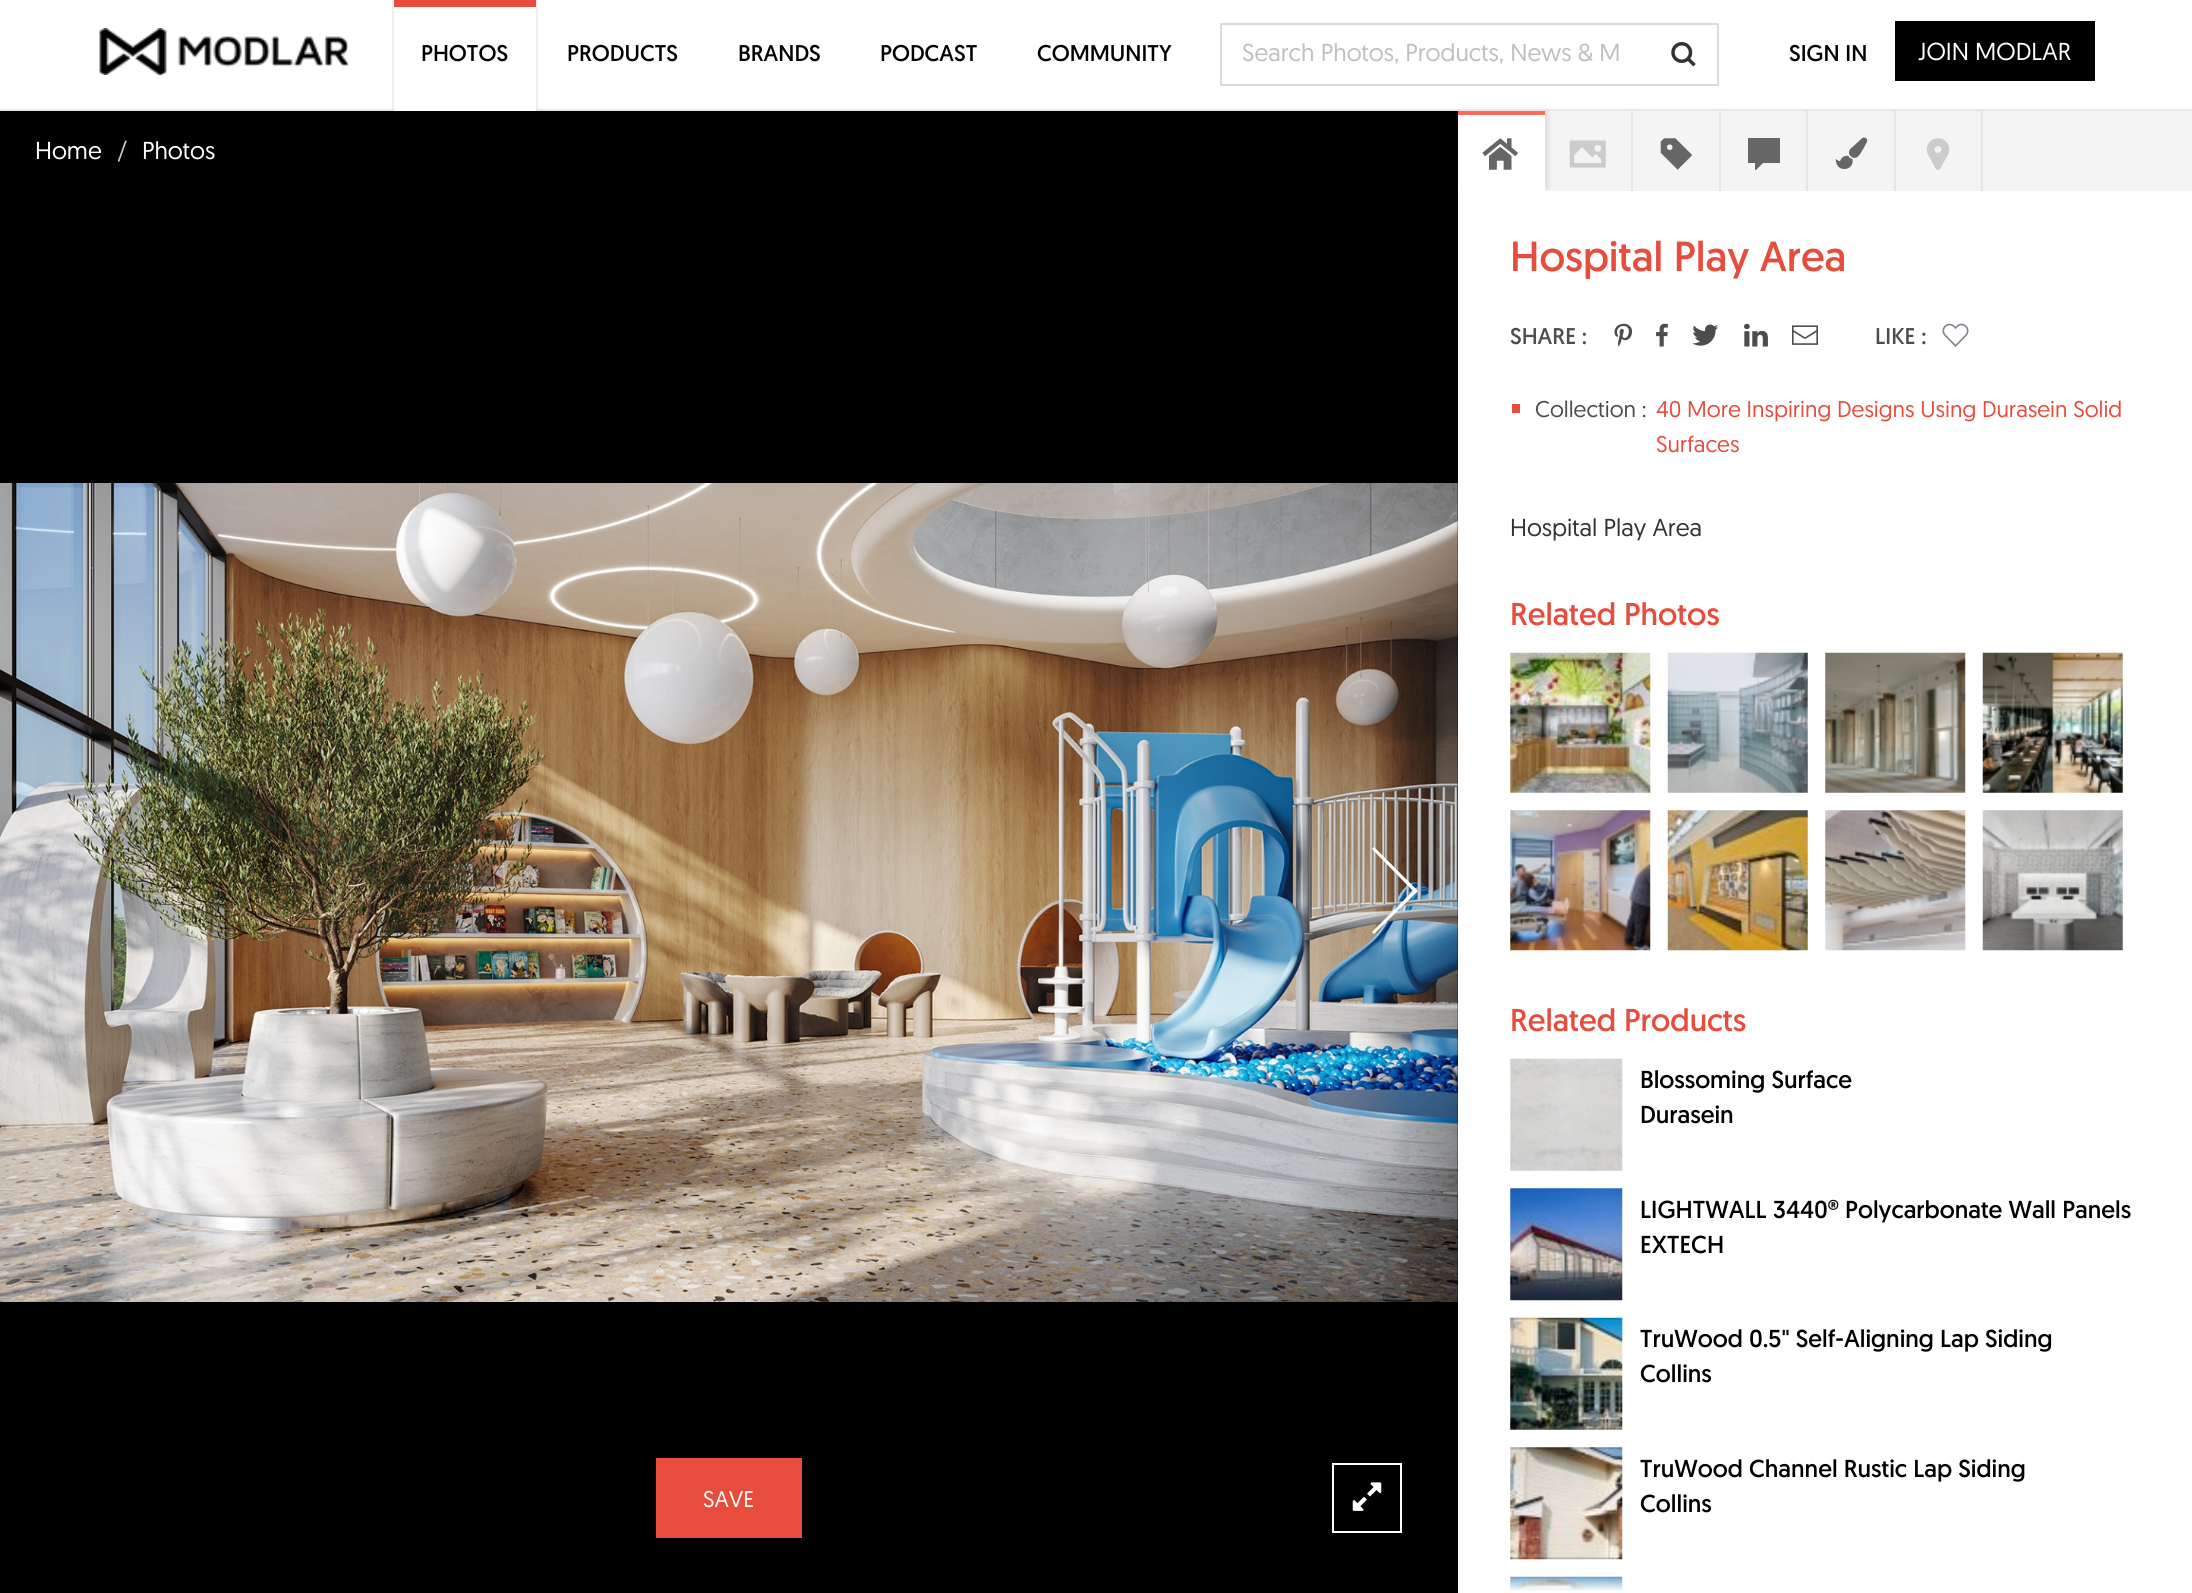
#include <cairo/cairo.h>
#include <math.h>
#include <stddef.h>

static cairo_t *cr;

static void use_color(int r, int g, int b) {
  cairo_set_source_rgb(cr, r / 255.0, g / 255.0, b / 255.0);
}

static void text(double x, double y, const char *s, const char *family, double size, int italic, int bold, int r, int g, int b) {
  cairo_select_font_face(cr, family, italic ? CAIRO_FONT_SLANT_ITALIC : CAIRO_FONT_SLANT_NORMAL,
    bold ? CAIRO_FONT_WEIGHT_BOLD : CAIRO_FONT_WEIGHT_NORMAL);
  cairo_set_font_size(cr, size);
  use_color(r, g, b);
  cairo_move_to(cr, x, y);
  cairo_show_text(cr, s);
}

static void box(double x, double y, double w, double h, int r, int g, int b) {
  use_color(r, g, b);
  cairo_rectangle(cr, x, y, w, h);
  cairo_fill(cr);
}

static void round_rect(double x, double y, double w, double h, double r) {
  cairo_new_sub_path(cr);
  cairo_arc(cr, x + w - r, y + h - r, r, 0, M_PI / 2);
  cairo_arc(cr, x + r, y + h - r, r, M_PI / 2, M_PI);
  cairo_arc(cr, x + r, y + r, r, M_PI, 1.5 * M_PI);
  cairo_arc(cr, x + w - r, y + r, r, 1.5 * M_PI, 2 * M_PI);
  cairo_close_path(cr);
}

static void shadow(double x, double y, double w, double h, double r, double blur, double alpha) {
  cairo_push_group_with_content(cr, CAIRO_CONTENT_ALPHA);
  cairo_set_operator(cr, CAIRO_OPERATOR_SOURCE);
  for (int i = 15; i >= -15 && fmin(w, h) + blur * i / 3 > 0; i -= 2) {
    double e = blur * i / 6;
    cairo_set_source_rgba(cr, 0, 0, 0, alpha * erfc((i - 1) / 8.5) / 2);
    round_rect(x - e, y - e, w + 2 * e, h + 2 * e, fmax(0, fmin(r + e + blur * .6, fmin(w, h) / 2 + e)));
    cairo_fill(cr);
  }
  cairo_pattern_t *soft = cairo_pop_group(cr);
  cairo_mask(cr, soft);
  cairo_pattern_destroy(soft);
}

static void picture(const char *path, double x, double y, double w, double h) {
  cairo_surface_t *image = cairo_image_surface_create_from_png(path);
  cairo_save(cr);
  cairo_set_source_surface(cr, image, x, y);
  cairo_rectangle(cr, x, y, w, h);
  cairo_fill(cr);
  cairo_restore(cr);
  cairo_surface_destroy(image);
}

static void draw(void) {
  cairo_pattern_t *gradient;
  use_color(255, 255, 255);
  cairo_paint(cr);
  box(0, 111, 1458, 1482, 0, 0, 0);
  box(1545, 111, 647, 80, 244, 244, 244);
  use_color(0, 0, 0);
  shadow(1461, 109, 88, 80, 0, 2, 0.08);
  box(1631, 110, 2, 81, 230, 230, 230);
  box(1719, 110, 2, 81, 230, 230, 230);
  box(1806, 110, 2, 81, 230, 230, 230);
  box(1894, 110, 2, 81, 230, 230, 230);
  box(1981, 110, 2, 81, 230, 230, 230);
  box(0, 109, 2192, 2, 231, 231, 231);
  picture("img_01.png", 99, 28, 249, 47);
  box(536, 0, 2, 109, 236, 240, 241);
  box(392, 0, 2, 109, 236, 240, 241);
  box(394, 0, 142, 7, 231, 76, 60);
  box(394, 109, 142, 2, 255, 255, 255);
  cairo_rectangle(cr, 1221, 24, 497, 61);
  use_color(219, 219, 219);
  cairo_stroke(cr);
  picture("img_02.png", 1671, 42, 25, 25);
  box(1895, 21, 200, 60, 0, 0, 0);
  picture("img_03.png", 0, 483, 1458, 819);
  use_color(255, 255, 255);
  cairo_new_path(cr);
  cairo_move_to(cr, 1374, 847);
  cairo_line_to(cr, 1418, 891);
  cairo_line_to(cr, 1374, 934);
  cairo_line_to(cr, 1372, 932);
  cairo_line_to(cr, 1413, 891);
  cairo_line_to(cr, 1372, 849);
  cairo_close_path(cr);
  cairo_fill(cr);
  box(656, 1458, 146, 80, 231, 76, 60);
  cairo_rectangle(cr, 1333, 1464, 68, 68);
  use_color(255, 255, 255);
  cairo_stroke(cr);
  picture("img_04.png", 1352, 1482, 30, 29);
  box(1459, 115, 86, 76, 255, 255, 255);
  box(1458, 111, 87, 4, 255, 106, 90);
  picture("img_05.png", 1482, 138, 37, 32);
  picture("img_06.png", 1569, 140, 37, 28);
  picture("img_07.png", 1660, 138, 33, 32);
  use_color(102, 102, 102);
  cairo_new_path(cr);
  cairo_move_to(cr, 1748, 138);
  cairo_line_to(cr, 1780, 138);
  cairo_line_to(cr, 1780, 163);
  cairo_line_to(cr, 1763, 163);
  cairo_line_to(cr, 1756, 170);
  cairo_line_to(cr, 1755, 170);
  cairo_line_to(cr, 1755, 163);
  cairo_line_to(cr, 1748, 163);
  cairo_close_path(cr);
  cairo_fill(cr);
  picture("img_08.png", 1835, 137, 33, 32);
  picture("img_09.png", 1926, 138, 24, 32);
  picture("img_10.png", 1614, 323, 19, 24);
  picture("img_11.png", 1656, 323, 12, 24);
  picture("img_12.png", 1692, 324, 27, 22);
  picture("img_13.png", 1744, 323, 24, 24);
  picture("img_14.png", 1792, 325, 26, 20);
  picture("img_15.png", 1942, 323, 27, 24);
  box(1512, 404, 8, 9, 231, 76, 60);
  picture("img_16.png", 1510, 652, 141, 141);
  picture("img_17.png", 1667, 652, 141, 141);
  picture("img_18.png", 1825, 652, 141, 141);
  picture("img_19.png", 1982, 652, 141, 141);
  picture("img_20.png", 1510, 810, 141, 141);
  picture("img_21.png", 1667, 810, 141, 141);
  picture("img_22.png", 1825, 810, 141, 141);
  picture("img_23.png", 1982, 810, 141, 141);
  picture("img_24.png", 1510, 1058, 113, 113);
  picture("img_25.png", 1510, 1188, 113, 113);
  picture("img_26.png", 1510, 1317, 113, 113);
  picture("img_27.png", 1510, 1447, 113, 113);
  picture("img_28.png", 1510, 1576, 113, 15);
  gradient = cairo_pattern_create_linear(1826, 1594, 1826, 1566);
  cairo_pattern_add_color_stop_rgba(gradient, 0.1, 1, 1, 1, 1);
  cairo_pattern_add_color_stop_rgba(gradient, 1, 1, 1, 1, 0);
  cairo_set_source(cr, gradient);
  cairo_pattern_destroy(gradient);
  cairo_rectangle(cr, 1510, 1576, 113, 15);
  cairo_fill(cr);
  text(421, 61, "PHOTOS", "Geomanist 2", 22.75, 0, 0, 0, 0, 0);
  text(567, 61, "PRODUCTS", "Geomanist 2", 22.75, 0, 0, 0, 0, 0);
  text(738, 61, "BRANDS", "Geomanist 2", 22.75, 0, 0, 0, 0, 0);
  text(880, 61, "PODCAST", "Geomanist 2", 22.75, 0, 0, 0, 0, 0);
  text(1037, 61, "COMMUNITY", "Geomanist 2", 22.75, 0, 0, 0, 0, 0);
  text(1242, 61, "Search Photos, Products, News & M", "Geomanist", 24.5, 0, 0, 191, 191, 191);
  text(1789, 61, "SIGN IN", "Geomanist 2", 22.75, 0, 0, 0, 0, 0);
  text(1918, 60, "JOIN MODLAR", "Geomanist", 24.5, 0, 0, 255, 255, 255);
  text(35, 159, "Home", "Geomanist", 24.5, 0, 0, 255, 255, 255);
  text(117, 159, "/", "Geomanist", 24.5, 0, 0, 204, 204, 204);
  text(142, 159, "Photos", "Geomanist", 24.5, 0, 0, 255, 255, 255);
  text(703, 1507, "SAVE", "Geomanist", 22.75, 0, 0, 255, 255, 255);
  text(1510, 271, "Hospital Play Area", "Geomanist 2", 42, 0, 0, 231, 76, 60);
  text(1510, 344, "SHARE :", "Geomanist 2", 22.75, 0, 0, 78, 76, 78);
  text(1875, 344, "LIKE :", "Geomanist 2", 22.75, 0, 0, 78, 76, 78);
  text(1535, 417, "Collection :", "Geomanist", 22.75, 0, 0, 78, 76, 78);
  text(1656, 417, "40 More Inspiring Designs Using Durasein Solid", "Geomanist", 22.75, 0, 0, 231, 76, 60);
  text(1656, 452, "Surfaces", "Geomanist", 22.75, 0, 0, 231, 76, 60);
  text(1510, 536, "Hospital Play Area", "Geomanist", 24.5, 0, 0, 51, 51, 51);
  text(1510, 625, "Related Photos", "Geomanist 2", 31.5, 0, 0, 231, 76, 60);
  text(1510, 1031, "Related Products", "Geomanist 2", 31.5, 0, 0, 231, 76, 60);
  text(1640, 1088, "Blossoming Surface", "Geomanist 2", 24.5, 0, 0, 0, 0, 0);
  text(1640, 1123, "Durasein", "Geomanist 2", 24.5, 0, 0, 0, 0, 0);
  text(1640, 1218, "LIGHTWALL 3440® Polycarbonate Wall Panels", "Geomanist 2", 24.5, 0, 0, 0, 0, 0);
  text(1640, 1253, "EXTECH", "Geomanist 2", 24.5, 0, 0, 0, 0, 0);
  text(1640, 1347, "TruWood 0.5\" Self-Aligning Lap Siding", "Geomanist 2", 24.5, 0, 0, 0, 0, 0);
  text(1640, 1382, "Collins", "Geomanist 2", 24.5, 0, 0, 0, 0, 0);
  text(1640, 1477, "TruWood Channel Rustic Lap Siding", "Geomanist 2", 24.5, 0, 0, 0, 0, 0);
  text(1640, 1512, "Collins", "Geomanist 2", 24.5, 0, 0, 0, 0, 0);
}

int main(void) {
  cairo_surface_t *surface = cairo_image_surface_create(CAIRO_FORMAT_RGB24, 2192, 1593);
  cr = cairo_create(surface);
  cairo_font_options_t *options = cairo_font_options_create();
  cairo_font_options_set_hint_metrics(options, CAIRO_HINT_METRICS_OFF);
  cairo_font_options_set_hint_style(options, CAIRO_HINT_STYLE_NONE);
  cairo_set_font_options(cr, options);
  cairo_set_miter_limit(cr, 4);
  draw();
  cairo_surface_write_to_png(surface, "out.png");
  cairo_font_options_destroy(options);
  cairo_destroy(cr);
  cairo_surface_destroy(surface);
  return 0;
}
